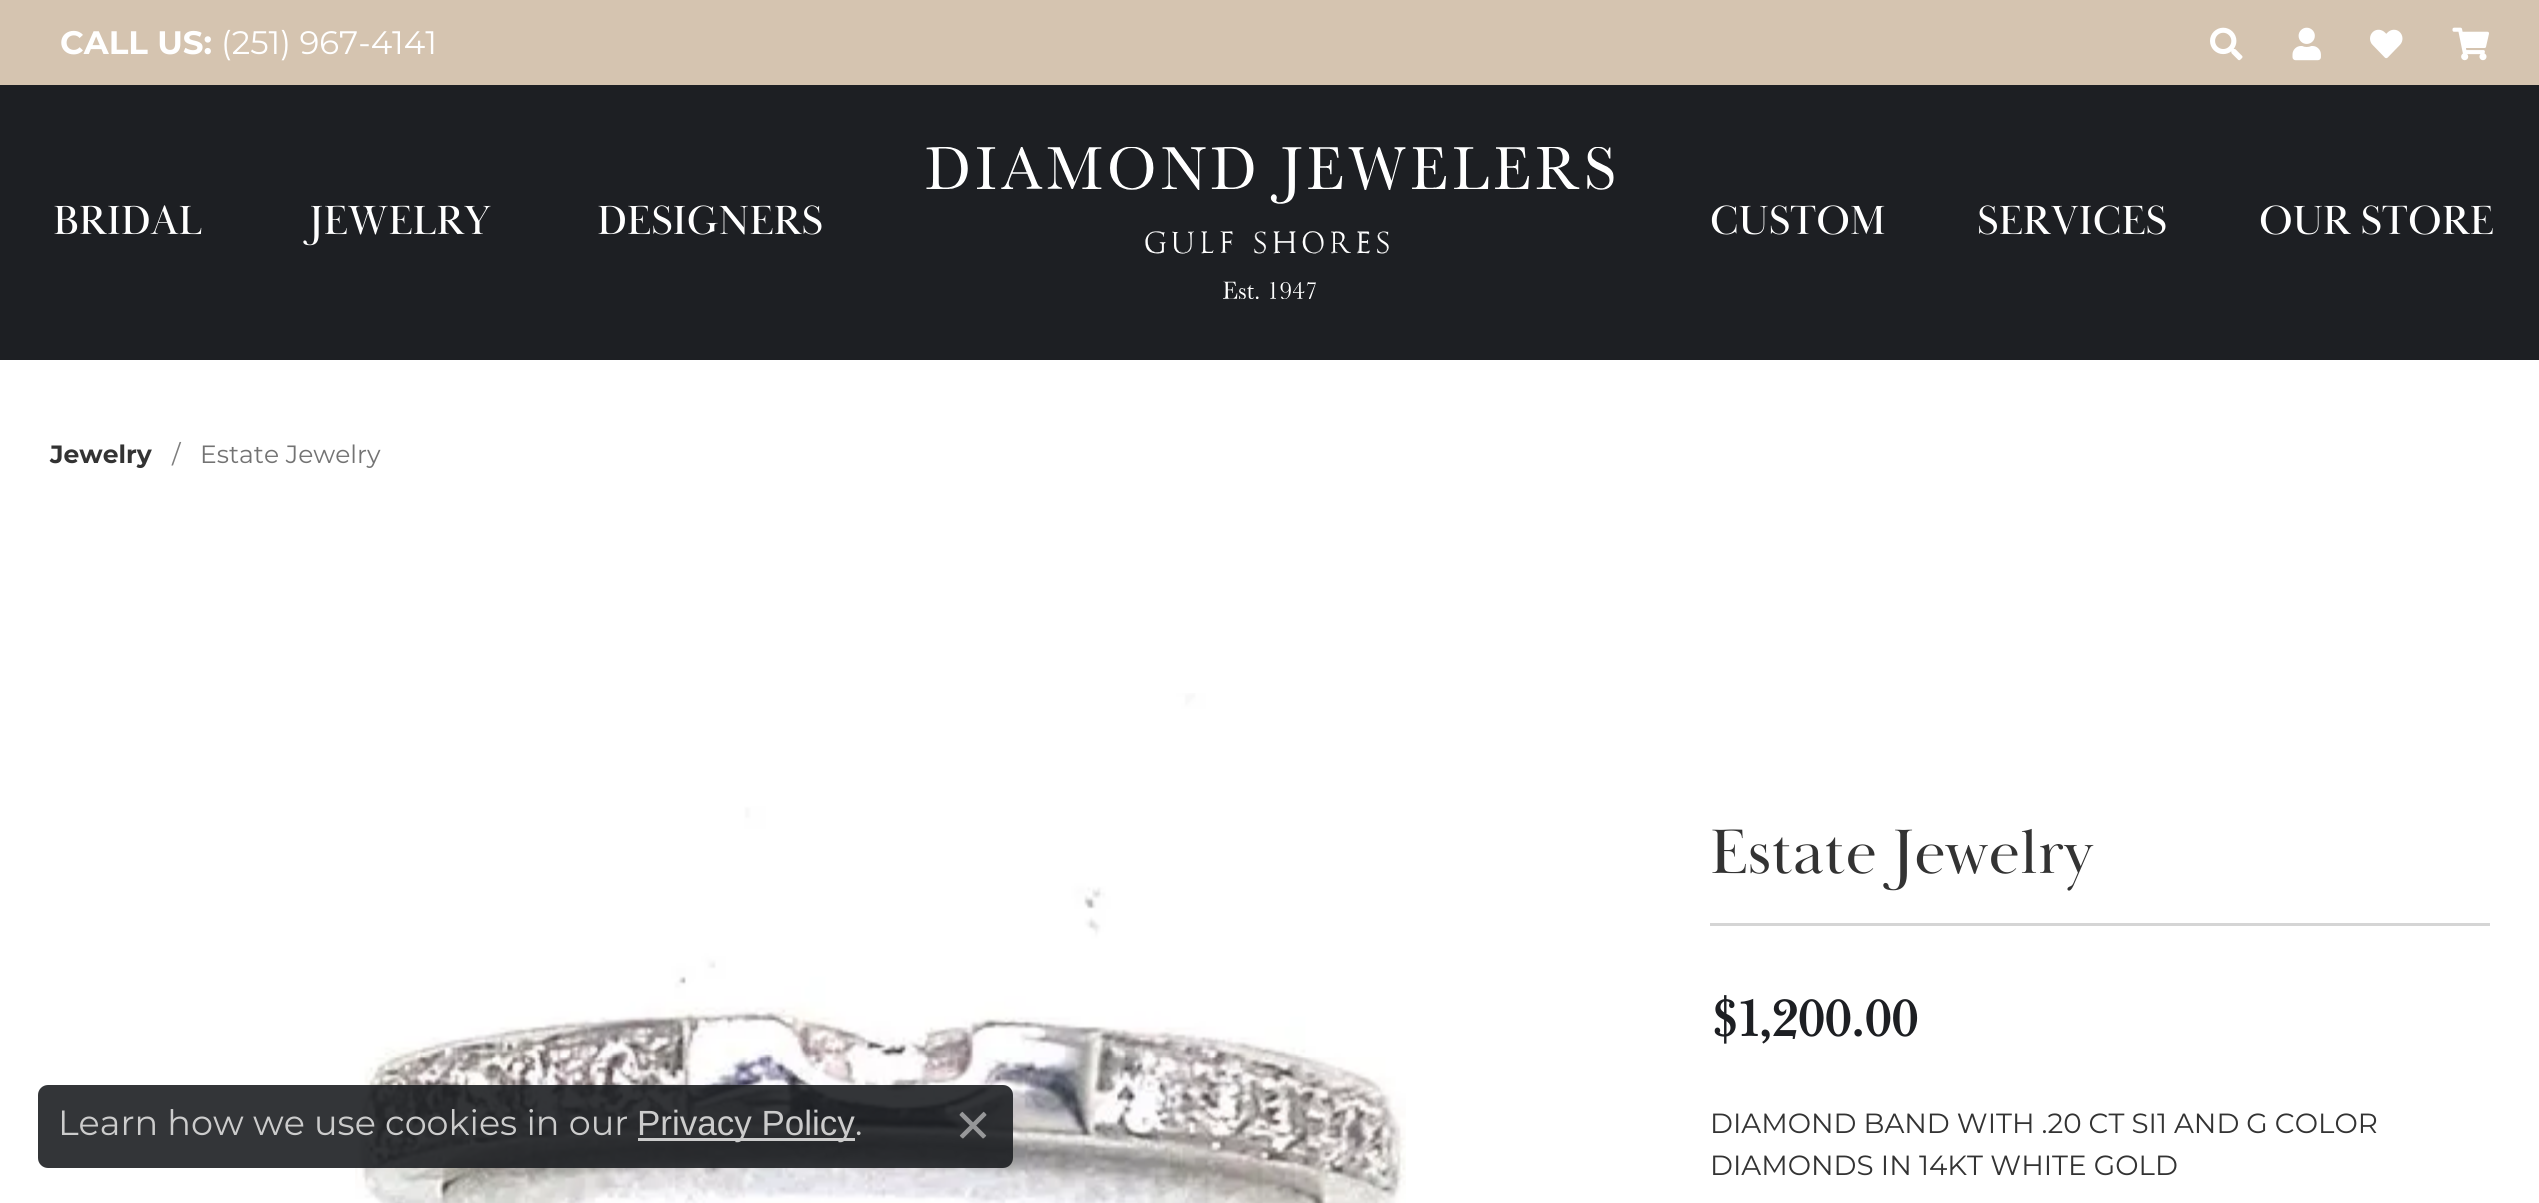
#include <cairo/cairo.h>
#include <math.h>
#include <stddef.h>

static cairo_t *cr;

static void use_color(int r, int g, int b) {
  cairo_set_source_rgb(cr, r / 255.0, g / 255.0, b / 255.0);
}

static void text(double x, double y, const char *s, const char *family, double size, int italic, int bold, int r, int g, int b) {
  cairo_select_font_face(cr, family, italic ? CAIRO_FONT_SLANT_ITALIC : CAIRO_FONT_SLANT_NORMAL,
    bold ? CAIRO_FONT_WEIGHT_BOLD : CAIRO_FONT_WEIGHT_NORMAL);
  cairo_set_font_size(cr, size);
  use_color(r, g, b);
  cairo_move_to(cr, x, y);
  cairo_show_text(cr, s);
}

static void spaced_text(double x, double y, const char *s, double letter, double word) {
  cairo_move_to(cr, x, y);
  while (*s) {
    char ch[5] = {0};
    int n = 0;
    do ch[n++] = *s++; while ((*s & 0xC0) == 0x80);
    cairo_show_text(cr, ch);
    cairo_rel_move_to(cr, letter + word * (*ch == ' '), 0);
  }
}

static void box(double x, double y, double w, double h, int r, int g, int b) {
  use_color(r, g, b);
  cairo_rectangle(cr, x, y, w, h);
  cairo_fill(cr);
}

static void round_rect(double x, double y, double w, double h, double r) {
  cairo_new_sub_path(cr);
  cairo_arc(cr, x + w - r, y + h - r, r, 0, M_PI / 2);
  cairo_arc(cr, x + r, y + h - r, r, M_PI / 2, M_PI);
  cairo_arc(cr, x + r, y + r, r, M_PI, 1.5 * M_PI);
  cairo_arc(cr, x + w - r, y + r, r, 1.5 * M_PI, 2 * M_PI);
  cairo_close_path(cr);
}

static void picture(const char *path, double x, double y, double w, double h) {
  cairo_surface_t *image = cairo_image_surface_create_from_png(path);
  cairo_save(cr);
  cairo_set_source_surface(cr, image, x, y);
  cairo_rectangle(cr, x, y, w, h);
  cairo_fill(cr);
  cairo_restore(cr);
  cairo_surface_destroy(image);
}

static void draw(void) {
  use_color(29, 31, 35);
  cairo_paint(cr);
  box(0, 0, 2539, 85, 213, 196, 176);
  picture("img_01.png", 2210, 27, 33, 34);
  picture("img_02.png", 2292, 27, 29, 34);
  picture("img_03.png", 2370, 29, 33, 30);
  picture("img_04.png", 2452, 27, 37, 34);
  picture("img_05.png", 926, 147, 688, 152);
  box(0, 360, 2539, 843, 255, 255, 255);
  picture("img_06.png", 355, 693, 1051, 510);
  box(1710, 923, 780, 3, 213, 213, 213);
  cairo_set_source_rgba(cr, 0.114, 0.122, 0.137, 0.9);
  round_rect(38, 1085, 975, 83, 10);
  cairo_fill(cr);
  box(638, 1138, 217, 3, 204, 204, 204);
  picture("img_07.png", 959, 1111, 28, 28);
  text(60, 54, "CALL US:", "Montserrat", 32.5, 0, 1, 255, 255, 255);
  text(221, 54, "(251) 967-4141", "Montserrat", 32.5, 0, 0, 255, 255, 255);
  text(53, 234, "BRIDAL", "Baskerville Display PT", 42, 0, 0, 255, 255, 255);
  text(309, 234, "JEWELRY", "Baskerville Display PT", 42, 0, 0, 255, 255, 255);
  text(597, 234, "DESIGNERS", "Baskerville Display PT", 42, 0, 0, 255, 255, 255);
  text(1710, 234, "CUSTOM", "Baskerville Display PT", 42, 0, 0, 255, 255, 255);
  text(1977, 234, "SERVICES", "Baskerville Display PT", 42, 0, 0, 255, 255, 255);
  text(2259, 234, "OUR STORE", "Baskerville Display PT", 42, 0, 0, 255, 255, 255);
  text(50, 463, "Jewelry", "Montserrat", 25, 0, 1, 51, 51, 51);
  text(172, 463, "/", "Montserrat", 25, 0, 0, 125, 125, 125);
  text(200, 463, "Estate Jewelry", "Montserrat", 25, 0, 0, 115, 115, 115);
  text(1710, 873, "Estate Jewelry", "Baskerville Display PT", 64.75, 0, 0, 51, 51, 51);
  text(1710, 1036, "$1,200.00", "Baskerville Display PT", 52, 0, 1, 29, 31, 35);
  cairo_select_font_face(cr, "Montserrat", CAIRO_FONT_SLANT_NORMAL, CAIRO_FONT_WEIGHT_NORMAL);
  cairo_set_font_size(cr, 27.75);
  use_color(51, 51, 51);
  spaced_text(1710, 1133, "DIAMOND BAND WITH .20 CT SI1 AND G COLOR", 0, -0.25);
  text(1710, 1175, "DIAMONDS IN 14KT WHITE GOLD", "Montserrat", 27.75, 0, 0, 51, 51, 51);
  text(58, 1135, "Learn how we use cookies in our", "Montserrat", 35, 0, 0, 204, 204, 204);
  text(637, 1135, "Privacy Policy", "Liberation Sans", 35, 0, 0, 204, 204, 204);
  text(855, 1135, ".", "Montserrat", 35, 0, 0, 204, 204, 204);
}

int main(void) {
  cairo_surface_t *surface = cairo_image_surface_create(CAIRO_FORMAT_RGB24, 2539, 1203);
  cr = cairo_create(surface);
  cairo_font_options_t *options = cairo_font_options_create();
  cairo_font_options_set_hint_metrics(options, CAIRO_HINT_METRICS_OFF);
  cairo_font_options_set_hint_style(options, CAIRO_HINT_STYLE_NONE);
  cairo_set_font_options(cr, options);
  cairo_set_miter_limit(cr, 4);
  draw();
  cairo_surface_write_to_png(surface, "out.png");
  cairo_font_options_destroy(options);
  cairo_destroy(cr);
  cairo_surface_destroy(surface);
  return 0;
}
